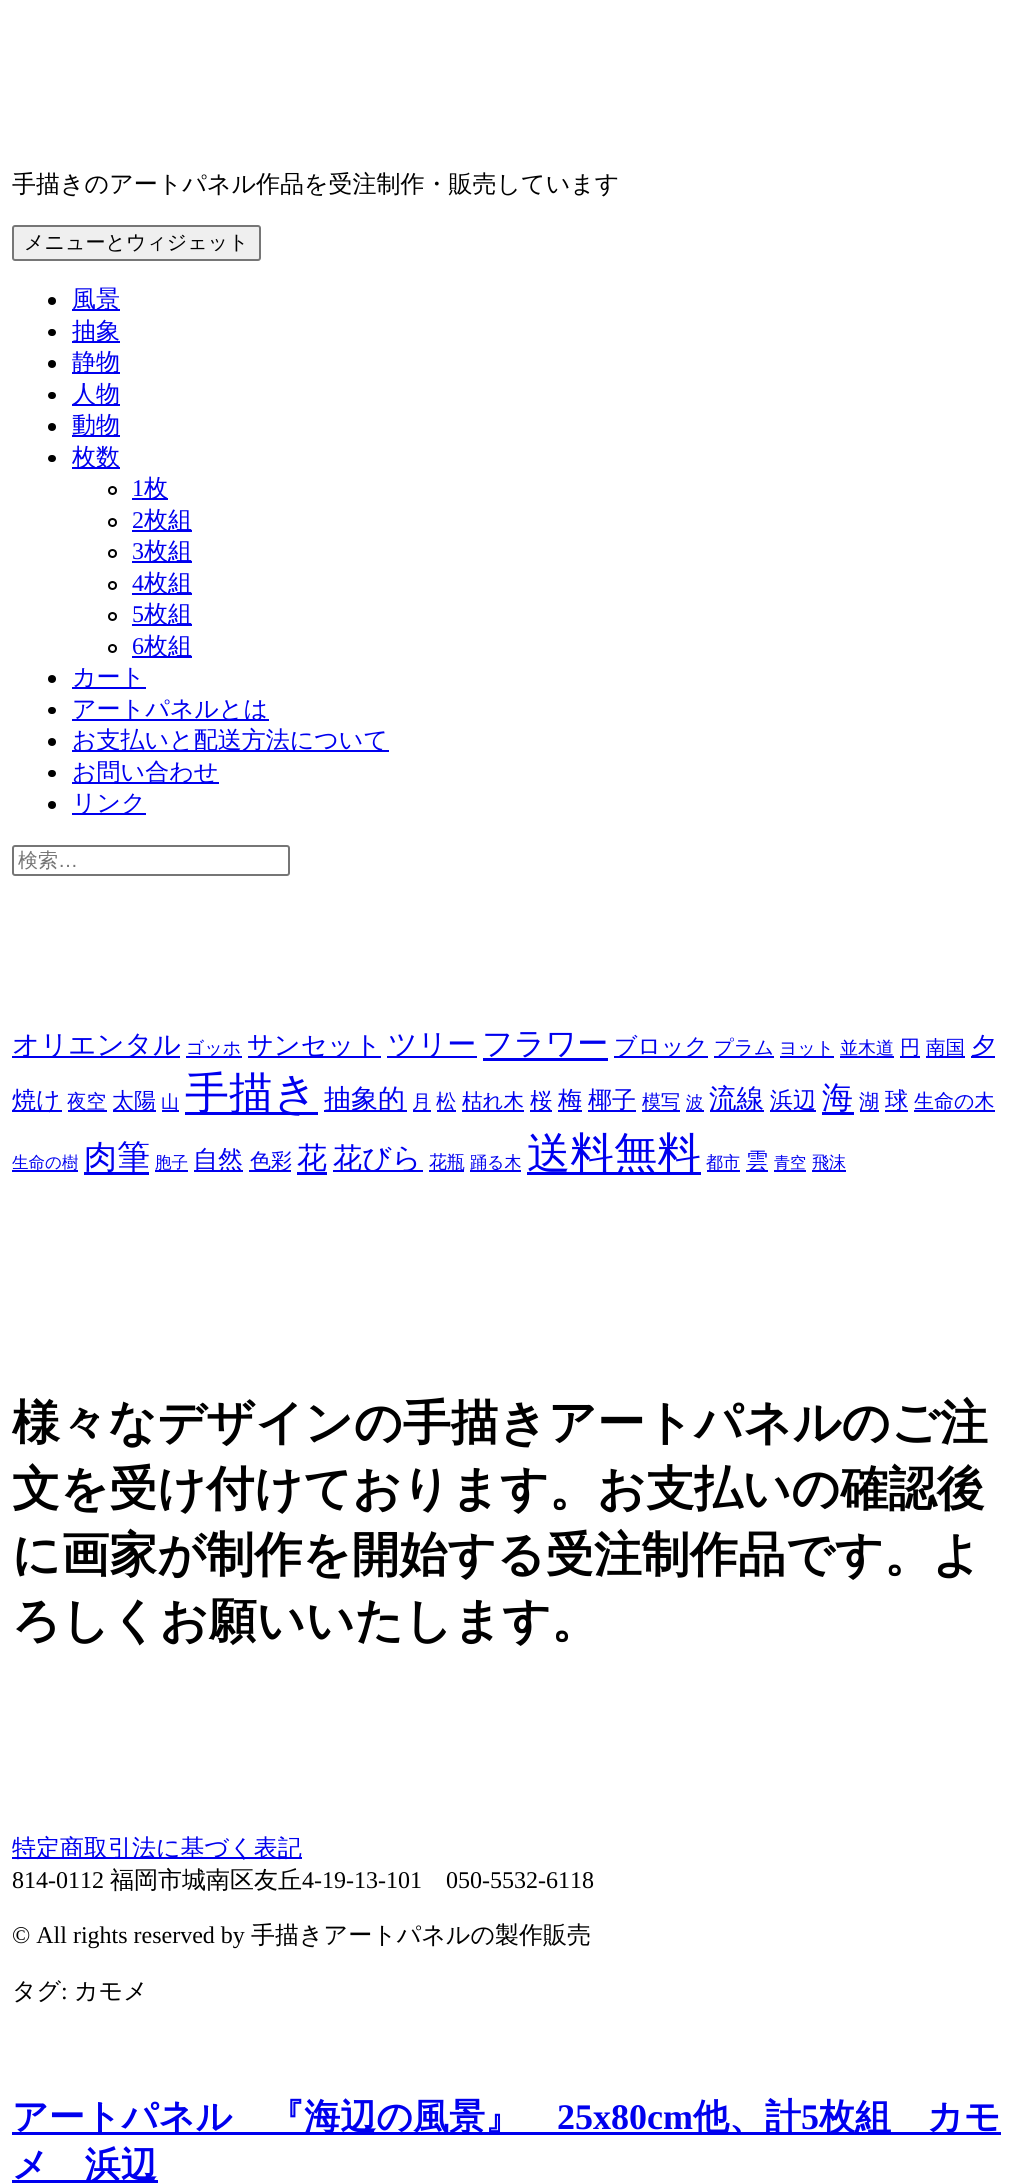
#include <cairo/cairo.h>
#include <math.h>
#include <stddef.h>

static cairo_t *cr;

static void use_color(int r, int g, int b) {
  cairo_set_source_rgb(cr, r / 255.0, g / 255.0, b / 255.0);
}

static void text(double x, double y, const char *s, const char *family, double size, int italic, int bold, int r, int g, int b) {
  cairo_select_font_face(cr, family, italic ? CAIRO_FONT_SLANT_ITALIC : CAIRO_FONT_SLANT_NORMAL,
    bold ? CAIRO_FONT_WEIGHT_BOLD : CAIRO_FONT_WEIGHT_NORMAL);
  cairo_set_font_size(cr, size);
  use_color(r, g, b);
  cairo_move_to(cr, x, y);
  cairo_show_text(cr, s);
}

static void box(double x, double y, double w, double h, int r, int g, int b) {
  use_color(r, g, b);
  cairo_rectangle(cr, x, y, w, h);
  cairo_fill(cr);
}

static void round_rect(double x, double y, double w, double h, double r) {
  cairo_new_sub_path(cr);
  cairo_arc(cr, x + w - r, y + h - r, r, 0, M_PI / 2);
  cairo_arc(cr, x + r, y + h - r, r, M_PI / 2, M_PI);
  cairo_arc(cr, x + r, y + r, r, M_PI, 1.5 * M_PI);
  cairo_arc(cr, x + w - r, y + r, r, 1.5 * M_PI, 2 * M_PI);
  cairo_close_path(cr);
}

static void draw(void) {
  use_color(255, 255, 255);
  cairo_paint(cr);
  use_color(239, 239, 239);
  round_rect(13, 226, 247, 34, 2);
  cairo_fill_preserve(cr);
  use_color(118, 118, 118);
  cairo_stroke(cr);
  use_color(0, 0, 0);
  cairo_arc(cr, 52, 301, 4, 0, 2 * M_PI);
  cairo_fill(cr);
  box(72, 309, 48, 2, 0, 0, 238);
  use_color(0, 0, 0);
  round_rect(48, 329, 8, 7, 3.5);
  cairo_fill(cr);
  box(72, 341, 48, 2, 0, 0, 238);
  use_color(0, 0, 0);
  cairo_arc(cr, 52, 364, 4, 0, 2 * M_PI);
  cairo_fill(cr);
  box(72, 372, 48, 2, 0, 0, 238);
  use_color(0, 0, 0);
  round_rect(48, 392, 8, 7, 3.5);
  cairo_fill(cr);
  box(72, 404, 48, 2, 0, 0, 238);
  use_color(0, 0, 0);
  cairo_arc(cr, 52, 427, 4, 0, 2 * M_PI);
  cairo_fill(cr);
  box(72, 435, 48, 2, 0, 0, 238);
  use_color(0, 0, 0);
  round_rect(48, 455, 8, 7, 3.5);
  cairo_fill(cr);
  box(72, 467, 48, 2, 0, 0, 238);
  cairo_arc(cr, 112.5, 490.5, 3.5, 0, 2 * M_PI);
  use_color(0, 0, 0);
  cairo_stroke(cr);
  box(132, 498, 36, 2, 0, 0, 238);
  cairo_arc(cr, 112.5, 522.5, 3.5, 0, 2 * M_PI);
  use_color(0, 0, 0);
  cairo_stroke(cr);
  box(132, 530, 60, 2, 0, 0, 238);
  cairo_arc(cr, 112.5, 553.5, 3.5, 0, 2 * M_PI);
  use_color(0, 0, 0);
  cairo_stroke(cr);
  box(132, 561, 60, 2, 0, 0, 238);
  cairo_arc(cr, 112.5, 585.5, 3.5, 0, 2 * M_PI);
  use_color(0, 0, 0);
  cairo_stroke(cr);
  box(132, 593, 60, 2, 0, 0, 238);
  cairo_arc(cr, 112.5, 616.5, 3.5, 0, 2 * M_PI);
  use_color(0, 0, 0);
  cairo_stroke(cr);
  box(132, 624, 60, 2, 0, 0, 238);
  cairo_arc(cr, 112.5, 648.5, 3.5, 0, 2 * M_PI);
  use_color(0, 0, 0);
  cairo_stroke(cr);
  box(132, 656, 60, 2, 0, 0, 238);
  use_color(0, 0, 0);
  cairo_arc(cr, 52, 679, 4, 0, 2 * M_PI);
  cairo_fill(cr);
  box(72, 687, 74, 2, 0, 0, 238);
  use_color(0, 0, 0);
  round_rect(48, 707, 8, 7, 3.5);
  cairo_fill(cr);
  box(72, 719, 197, 2, 0, 0, 238);
  use_color(0, 0, 0);
  cairo_arc(cr, 52, 742, 4, 0, 2 * M_PI);
  cairo_fill(cr);
  box(72, 750, 317, 2, 0, 0, 238);
  use_color(0, 0, 0);
  round_rect(48, 770, 8, 7, 3.5);
  cairo_fill(cr);
  box(72, 782, 147, 2, 0, 0, 238);
  use_color(0, 0, 0);
  cairo_arc(cr, 52, 805, 4, 0, 2 * M_PI);
  cairo_fill(cr);
  box(72, 813, 74, 2, 0, 0, 238);
  round_rect(13, 846, 276, 29, 2);
  use_color(118, 118, 118);
  cairo_stroke(cr);
  box(12, 1056, 168, 2, 0, 0, 238);
  box(186, 1056, 56, 2, 0, 0, 238);
  box(248, 1056, 133, 2, 0, 0, 238);
  box(387, 1056, 90, 2, 0, 0, 238);
  box(483, 1058, 125, 3, 0, 0, 238);
  box(614, 1056, 94, 2, 0, 0, 238);
  box(714, 1056, 60, 2, 0, 0, 238);
  box(780, 1056, 54, 2, 0, 0, 238);
  box(840, 1056, 54, 2, 0, 0, 238);
  box(900, 1056, 20, 2, 0, 0, 238);
  box(926, 1056, 39, 2, 0, 0, 238);
  box(971, 1056, 24, 2, 0, 0, 238);
  box(12, 1110, 50, 2, 0, 0, 238);
  box(68, 1110, 39, 2, 0, 0, 238);
  box(113, 1110, 43, 2, 0, 0, 238);
  box(162, 1110, 17, 2, 0, 0, 238);
  box(185, 1112, 133, 3, 0, 0, 238);
  box(324, 1110, 83, 2, 0, 0, 238);
  box(413, 1110, 18, 2, 0, 0, 238);
  box(437, 1110, 19, 2, 0, 0, 238);
  box(462, 1110, 62, 2, 0, 0, 238);
  box(530, 1110, 22, 2, 0, 0, 238);
  box(558, 1110, 24, 2, 0, 0, 238);
  box(588, 1110, 48, 2, 0, 0, 238);
  box(642, 1110, 38, 2, 0, 0, 238);
  box(686, 1110, 18, 2, 0, 0, 238);
  box(710, 1110, 54, 2, 0, 0, 238);
  box(770, 1110, 46, 2, 0, 0, 238);
  box(822, 1112, 32, 3, 0, 0, 238);
  box(860, 1110, 19, 2, 0, 0, 238);
  box(885, 1110, 23, 2, 0, 0, 238);
  box(914, 1110, 81, 2, 0, 0, 238);
  box(12, 1170, 66, 2, 0, 0, 238);
  box(84, 1172, 65, 3, 0, 0, 238);
  box(155, 1170, 33, 2, 0, 0, 238);
  box(194, 1170, 49, 2, 0, 0, 238);
  box(249, 1170, 42, 2, 0, 0, 238);
  box(297, 1172, 30, 3, 0, 0, 238);
  box(333, 1170, 90, 2, 0, 0, 238);
  box(429, 1170, 35, 2, 0, 0, 238);
  box(470, 1170, 51, 2, 0, 0, 238);
  box(527, 1172, 174, 3, 0, 0, 238);
  box(707, 1170, 33, 2, 0, 0, 238);
  box(746, 1170, 22, 2, 0, 0, 238);
  box(774, 1170, 32, 2, 0, 0, 238);
  box(812, 1170, 34, 2, 0, 0, 238);
  box(12, 1857, 290, 2, 0, 0, 238);
  box(12, 2132, 989, 3, 0, 0, 238);
  box(12, 2180, 146, 3, 0, 0, 238);
  text(12, 192, "手描きのアートパネル作品を受注制作・販売しています", "WenQuanYi Zen Hei Medium", 24, 0, 0, 0, 0, 0);
  text(24, 249, "メニューとウィジェット", "WenQuanYi Zen Hei Medium", 20, 0, 0, 0, 0, 0);
  text(72, 307, "風景", "WenQuanYi Zen Hei Medium", 24, 0, 0, 0, 0, 238);
  text(72, 339, "抽象", "WenQuanYi Zen Hei Medium", 24, 0, 0, 0, 0, 238);
  text(72, 370, "静物", "WenQuanYi Zen Hei Medium", 24, 0, 0, 0, 0, 238);
  text(72, 402, "人物", "WenQuanYi Zen Hei Medium", 24, 0, 0, 0, 0, 238);
  text(72, 433, "動物", "WenQuanYi Zen Hei Medium", 24, 0, 0, 0, 0, 238);
  text(72, 465, "枚数", "WenQuanYi Zen Hei Medium", 24, 0, 0, 0, 0, 238);
  text(132, 496, "1", "Liberation Serif", 24, 0, 0, 0, 0, 238);
  text(144, 496, "枚", "WenQuanYi Zen Hei Medium", 24, 0, 0, 0, 0, 238);
  text(132, 528, "2", "Liberation Serif", 24, 0, 0, 0, 0, 238);
  text(144, 528, "枚組", "WenQuanYi Zen Hei Medium", 24, 0, 0, 0, 0, 238);
  text(132, 559, "3", "Liberation Serif", 24, 0, 0, 0, 0, 238);
  text(144, 559, "枚組", "WenQuanYi Zen Hei Medium", 24, 0, 0, 0, 0, 238);
  text(132, 591, "4", "Liberation Serif", 24, 0, 0, 0, 0, 238);
  text(144, 591, "枚組", "WenQuanYi Zen Hei Medium", 24, 0, 0, 0, 0, 238);
  text(132, 622, "5", "Liberation Serif", 24, 0, 0, 0, 0, 238);
  text(144, 622, "枚組", "WenQuanYi Zen Hei Medium", 24, 0, 0, 0, 0, 238);
  text(132, 654, "6", "Liberation Serif", 24, 0, 0, 0, 0, 238);
  text(144, 654, "枚組", "WenQuanYi Zen Hei Medium", 24, 0, 0, 0, 0, 238);
  text(72, 685, "カート", "WenQuanYi Zen Hei Medium", 24, 0, 0, 0, 0, 238);
  text(72, 717, "アートパネルとは", "WenQuanYi Zen Hei Medium", 24, 0, 0, 0, 0, 238);
  text(72, 748, "お支払いと配送方法について", "WenQuanYi Zen Hei Medium", 24, 0, 0, 0, 0, 238);
  text(72, 780, "お問い合わせ", "WenQuanYi Zen Hei Medium", 24, 0, 0, 0, 0, 238);
  text(72, 811, "リンク", "WenQuanYi Zen Hei Medium", 24, 0, 0, 0, 0, 238);
  text(18, 867, "検索", "WenQuanYi Zen Hei Medium", 20, 0, 0, 117, 117, 117);
  text(58, 867, "…", "Liberation Sans", 20, 0, 0, 117, 117, 117);
  text(12, 1054, "オリエンタル", "WenQuanYi Zen Hei Medium", 27.5, 0, 0, 0, 0, 238);
  text(186, 1054, "ゴッホ", "WenQuanYi Zen Hei Medium", 18, 0, 0, 0, 0, 238);
  text(247, 1054, "サンセット", "WenQuanYi Zen Hei Medium", 26.25, 0, 0, 0, 0, 238);
  text(388, 1054, "ツリー", "WenQuanYi Zen Hei Medium", 29, 0, 0, 0, 0, 238);
  text(482, 1054, "フラワー", "WenQuanYi Zen Hei Medium", 31, 0, 0, 0, 0, 238);
  text(614, 1054, "ブロック", "WenQuanYi Zen Hei Medium", 23, 0, 0, 0, 0, 238);
  text(714, 1054, "プラム", "WenQuanYi Zen Hei Medium", 19.5, 0, 0, 0, 0, 238);
  text(779, 1054, "ヨット", "WenQuanYi Zen Hei Medium", 18, 0, 0, 0, 0, 238);
  text(840, 1054, "並木道", "WenQuanYi Zen Hei Medium", 18, 0, 0, 0, 0, 238);
  text(900, 1054, "円", "WenQuanYi Zen Hei Medium", 20, 0, 0, 0, 0, 238);
  text(926, 1054, "南国", "WenQuanYi Zen Hei Medium", 19.5, 0, 0, 0, 0, 238);
  text(971, 1054, "夕", "WenQuanYi Zen Hei Medium", 24, 0, 0, 0, 0, 238);
  text(12, 1108, "焼け", "WenQuanYi Zen Hei Medium", 24, 0, 0, 0, 0, 238);
  text(67, 1108, "夜空", "WenQuanYi Zen Hei Medium", 19.5, 0, 0, 0, 0, 238);
  text(112, 1108, "太陽", "WenQuanYi Zen Hei Medium", 22, 0, 0, 0, 0, 238);
  text(161, 1108, "山", "WenQuanYi Zen Hei Medium", 18, 0, 0, 0, 0, 238);
  text(185, 1108, "手描き", "WenQuanYi Zen Hei Medium", 44, 0, 0, 0, 0, 238);
  text(324, 1108, "抽象的", "WenQuanYi Zen Hei Medium", 27, 0, 0, 0, 0, 238);
  text(412, 1108, "月", "WenQuanYi Zen Hei Medium", 19, 0, 0, 0, 0, 238);
  text(436, 1108, "松", "WenQuanYi Zen Hei Medium", 20, 0, 0, 0, 0, 238);
  text(462, 1108, "枯れ木", "WenQuanYi Zen Hei Medium", 20.5, 0, 0, 0, 0, 238);
  text(530, 1108, "桜", "WenQuanYi Zen Hei Medium", 22, 0, 0, 0, 0, 238);
  text(558, 1108, "梅", "WenQuanYi Zen Hei Medium", 24, 0, 0, 0, 0, 238);
  text(588, 1108, "椰子", "WenQuanYi Zen Hei Medium", 24, 0, 0, 0, 0, 238);
  text(642, 1108, "模写", "WenQuanYi Zen Hei Medium", 19, 0, 0, 0, 0, 238);
  text(686, 1108, "波", "WenQuanYi Zen Hei Medium", 17, 0, 0, 0, 0, 238);
  text(709, 1108, "流線", "WenQuanYi Zen Hei Medium", 27.5, 0, 0, 0, 0, 238);
  text(770, 1108, "浜辺", "WenQuanYi Zen Hei Medium", 23, 0, 0, 0, 0, 238);
  text(822, 1108, "海", "WenQuanYi Zen Hei Medium", 31, 0, 0, 0, 0, 238);
  text(859, 1108, "湖", "WenQuanYi Zen Hei Medium", 20, 0, 0, 0, 0, 238);
  text(885, 1108, "球", "WenQuanYi Zen Hei Medium", 23, 0, 0, 0, 0, 238);
  text(914, 1108, "生命の木", "WenQuanYi Zen Hei Medium", 20, 0, 0, 0, 0, 238);
  text(12, 1168, "生命の樹", "WenQuanYi Zen Hei Medium", 16.5, 0, 0, 0, 0, 238);
  text(84, 1168, "肉筆", "WenQuanYi Zen Hei Medium", 33, 0, 0, 0, 0, 238);
  text(155, 1168, "胞子", "WenQuanYi Zen Hei Medium", 16.5, 0, 0, 0, 0, 238);
  text(193, 1168, "自然", "WenQuanYi Zen Hei Medium", 25, 0, 0, 0, 0, 238);
  text(250, 1168, "色彩", "WenQuanYi Zen Hei Medium", 21, 0, 0, 0, 0, 238);
  text(297, 1168, "花", "WenQuanYi Zen Hei Medium", 30, 0, 0, 0, 0, 238);
  text(333, 1168, "花びら", "WenQuanYi Zen Hei Medium", 29, 0, 0, 0, 0, 238);
  text(429, 1168, "花瓶", "WenQuanYi Zen Hei Medium", 18, 0, 0, 0, 0, 238);
  text(470, 1168, "踊る木", "WenQuanYi Zen Hei Medium", 17, 0, 0, 0, 0, 238);
  text(527, 1168, "送料無料", "WenQuanYi Zen Hei Medium", 43.5, 0, 0, 0, 0, 238);
  text(706, 1168, "都市", "WenQuanYi Zen Hei Medium", 17, 0, 0, 0, 0, 238);
  text(746, 1168, "雲", "WenQuanYi Zen Hei Medium", 22, 0, 0, 0, 0, 238);
  text(774, 1168, "青空", "WenQuanYi Zen Hei Medium", 16, 0, 0, 0, 0, 238);
  text(812, 1168, "飛沫", "WenQuanYi Zen Hei Medium", 17, 0, 0, 0, 0, 238);
  text(12, 1439, "様々なデザインの手描きアートパネルのご注", "WenQuanYi Zen Hei", 48, 0, 1, 0, 0, 0);
  text(12, 1505, "文を受け付けております。お支払いの確認後", "WenQuanYi Zen Hei", 48, 0, 1, 0, 0, 0);
  text(12, 1571, "に画家が制作を開始する受注制作品です。よ", "WenQuanYi Zen Hei", 48, 0, 1, 0, 0, 0);
  text(12, 1637, "ろしくお願いいたします。", "WenQuanYi Zen Hei", 48, 0, 1, 0, 0, 0);
  text(12, 1856, "特定商取引法に基づく表記", "WenQuanYi Zen Hei Medium", 24, 0, 0, 0, 0, 238);
  text(12, 1888, "814-0112", "Liberation Serif", 24, 0, 0, 0, 0, 0);
  text(110, 1888, "福岡市城南区友丘", "WenQuanYi Zen Hei Medium", 24, 0, 0, 0, 0, 0);
  text(302, 1888, "4-19-13-101", "Liberation Serif", 24, 0, 0, 0, 0, 0);
  text(446, 1888, "050-5532-6118", "Liberation Serif", 24, 0, 0, 0, 0, 0);
  text(12, 1943, "© All rights reserved by", "Liberation Serif", 24, 0, 0, 0, 0, 0);
  text(251, 1943, "手描きアートパネルの製作販売", "WenQuanYi Zen Hei Medium", 24, 0, 0, 0, 0, 0);
  text(12, 1999, "タグ", "WenQuanYi Zen Hei Medium", 24, 0, 0, 0, 0, 0);
  text(61, 1999, ":", "Liberation Serif", 24, 0, 0, 0, 0, 0);
  text(74, 1999, "カモメ", "WenQuanYi Zen Hei Medium", 24, 0, 0, 0, 0, 0);
  text(12, 2129, "アートパネル　『海辺の風景』", "WenQuanYi Zen Hei", 36, 0, 1, 0, 0, 238);
  text(557, 2129, "25x80cm", "Liberation Serif", 36, 0, 1, 0, 0, 238);
  text(693, 2129, "他、計", "WenQuanYi Zen Hei", 36, 0, 1, 0, 0, 238);
  text(801, 2129, "5", "Liberation Serif", 36, 0, 1, 0, 0, 238);
  text(819, 2129, "枚組　カモ", "WenQuanYi Zen Hei", 36, 0, 1, 0, 0, 238);
  text(12, 2177, "メ　浜辺", "WenQuanYi Zen Hei", 36, 0, 1, 0, 0, 238);
}

int main(void) {
  cairo_surface_t *surface = cairo_image_surface_create(CAIRO_FORMAT_RGB24, 1017, 2184);
  cr = cairo_create(surface);
  cairo_font_options_t *options = cairo_font_options_create();
  cairo_font_options_set_hint_metrics(options, CAIRO_HINT_METRICS_OFF);
  cairo_font_options_set_hint_style(options, CAIRO_HINT_STYLE_NONE);
  cairo_set_font_options(cr, options);
  cairo_set_miter_limit(cr, 4);
  draw();
  cairo_surface_write_to_png(surface, "out.png");
  cairo_font_options_destroy(options);
  cairo_destroy(cr);
  cairo_surface_destroy(surface);
  return 0;
}
